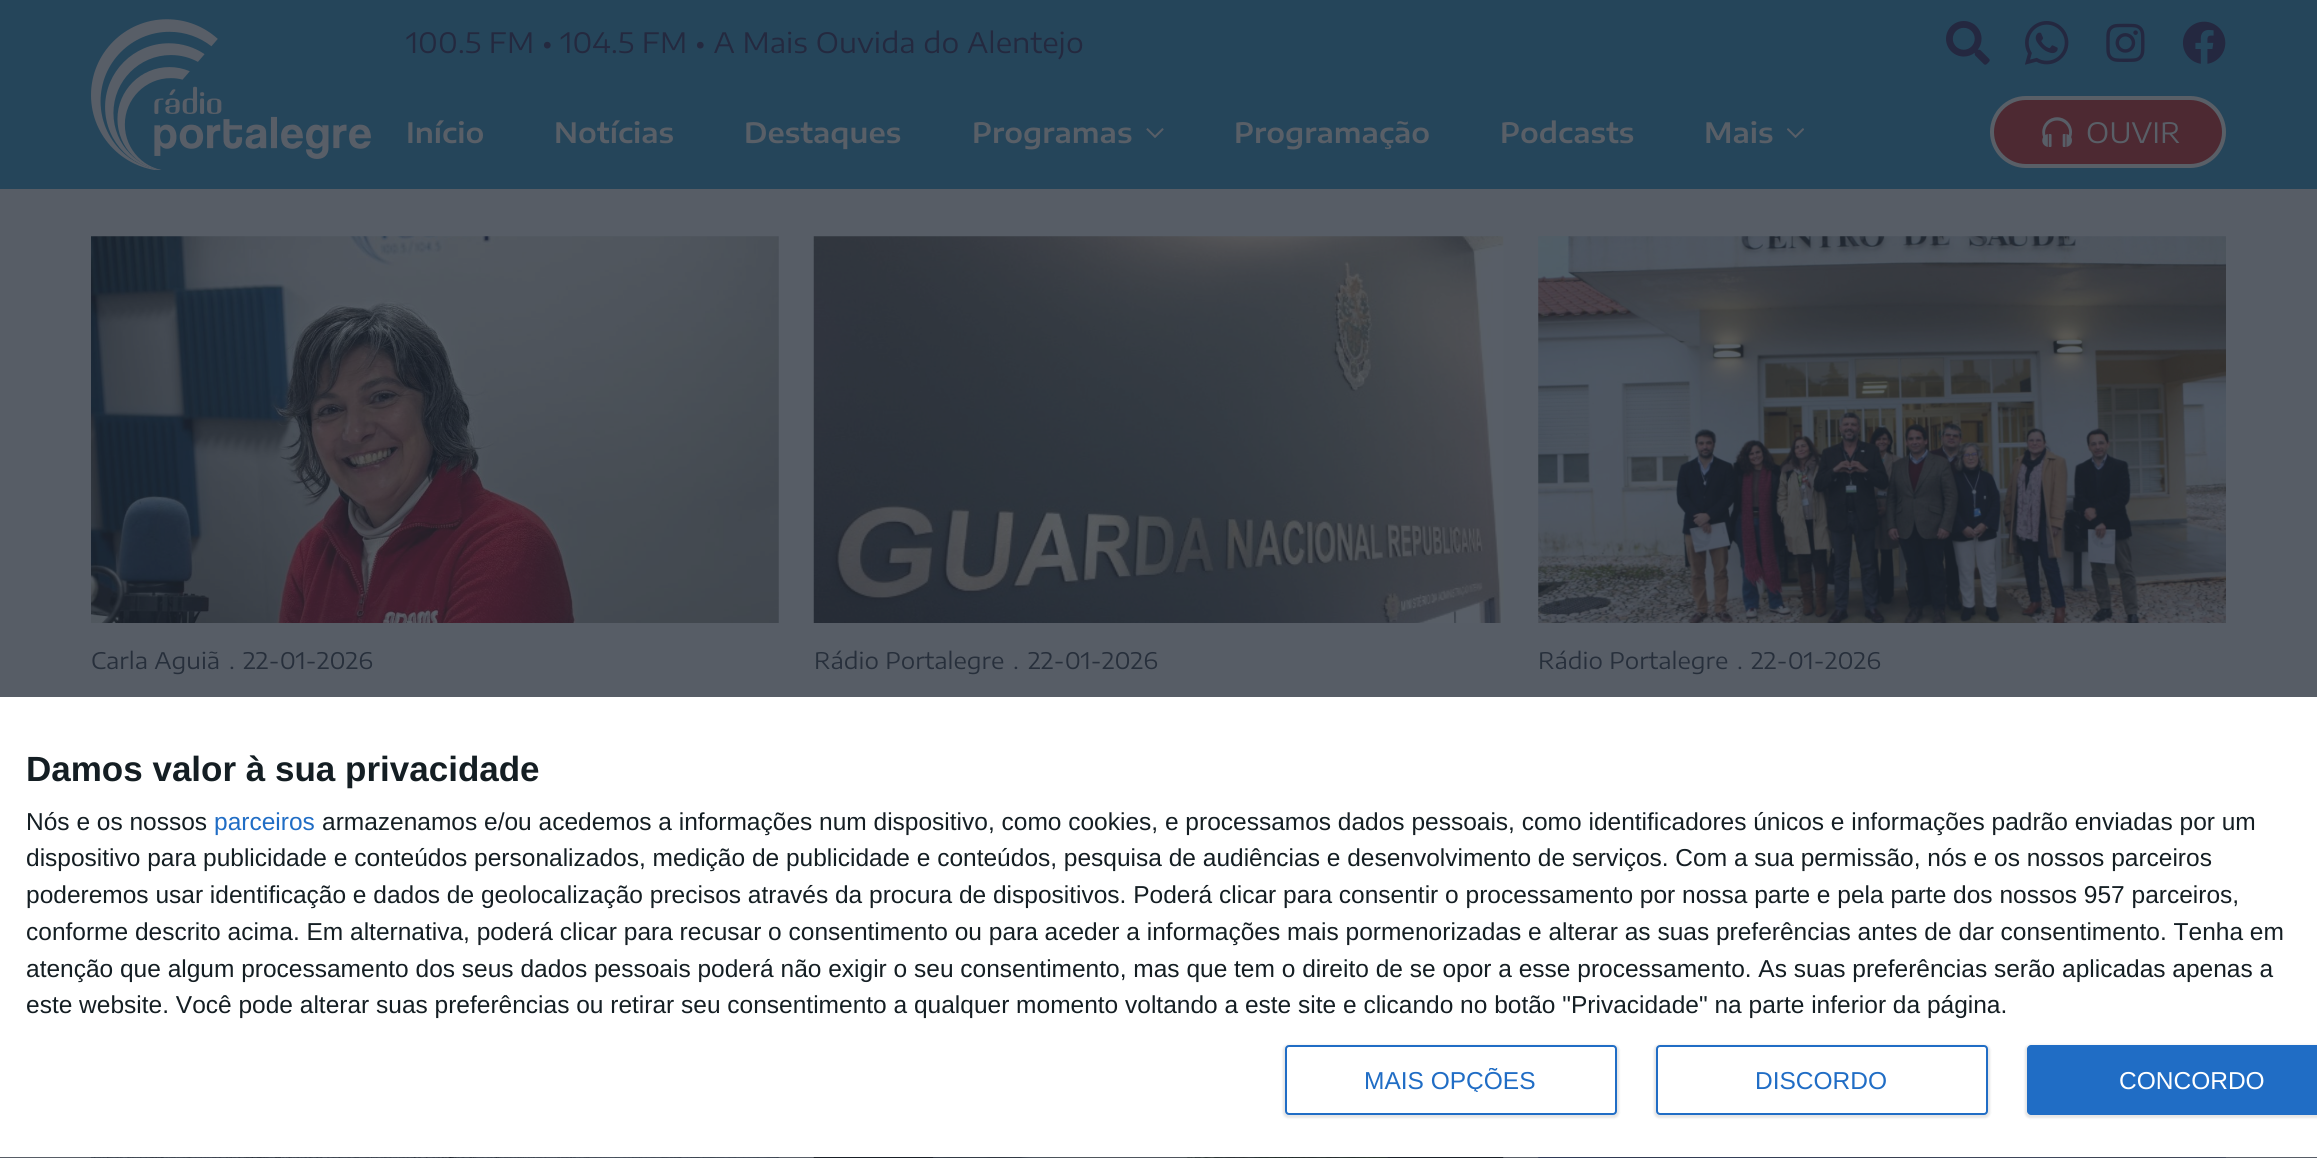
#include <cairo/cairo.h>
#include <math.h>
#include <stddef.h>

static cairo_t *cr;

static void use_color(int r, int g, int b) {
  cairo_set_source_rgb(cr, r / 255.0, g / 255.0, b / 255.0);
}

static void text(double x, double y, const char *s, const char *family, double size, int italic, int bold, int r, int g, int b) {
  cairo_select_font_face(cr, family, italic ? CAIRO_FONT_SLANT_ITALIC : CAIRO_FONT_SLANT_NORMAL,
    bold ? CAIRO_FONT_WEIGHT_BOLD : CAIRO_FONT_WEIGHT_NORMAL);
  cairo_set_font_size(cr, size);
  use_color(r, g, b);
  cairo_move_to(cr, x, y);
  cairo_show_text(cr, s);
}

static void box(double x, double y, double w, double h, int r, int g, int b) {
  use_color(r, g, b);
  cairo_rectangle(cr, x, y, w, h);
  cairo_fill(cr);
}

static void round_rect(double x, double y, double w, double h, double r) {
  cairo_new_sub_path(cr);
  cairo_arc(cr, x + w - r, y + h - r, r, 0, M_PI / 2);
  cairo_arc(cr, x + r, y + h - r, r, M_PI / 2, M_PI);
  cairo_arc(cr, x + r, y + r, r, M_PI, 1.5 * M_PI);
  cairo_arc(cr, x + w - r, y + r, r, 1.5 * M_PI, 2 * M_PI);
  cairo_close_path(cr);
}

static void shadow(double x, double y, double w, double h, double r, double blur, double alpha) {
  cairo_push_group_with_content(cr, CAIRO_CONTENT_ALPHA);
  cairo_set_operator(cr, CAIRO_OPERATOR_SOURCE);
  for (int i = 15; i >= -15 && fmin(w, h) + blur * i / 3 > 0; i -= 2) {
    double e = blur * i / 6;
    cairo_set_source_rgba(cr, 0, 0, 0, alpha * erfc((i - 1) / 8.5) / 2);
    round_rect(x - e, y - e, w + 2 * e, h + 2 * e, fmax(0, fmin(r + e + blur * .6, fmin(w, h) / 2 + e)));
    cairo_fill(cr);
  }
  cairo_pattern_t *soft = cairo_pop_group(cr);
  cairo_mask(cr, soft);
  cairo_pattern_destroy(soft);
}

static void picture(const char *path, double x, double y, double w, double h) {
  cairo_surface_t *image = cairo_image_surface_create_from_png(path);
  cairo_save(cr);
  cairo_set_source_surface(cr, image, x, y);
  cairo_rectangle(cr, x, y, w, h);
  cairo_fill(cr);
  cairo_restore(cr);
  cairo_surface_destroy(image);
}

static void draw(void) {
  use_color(87, 93, 102);
  cairo_paint(cr);
  box(0, 0, 2317, 189, 37, 69, 90);
  picture("img_01.png", 91, 19, 280, 151);
  picture("img_02.png", 1946, 21, 44, 44);
  picture("img_03.png", 2025, 21, 44, 44);
  picture("img_04.png", 2106, 23, 39, 39);
  picture("img_05.png", 2182, 21, 44, 43);
  picture("img_06.png", 1146, 128, 18, 10);
  picture("img_07.png", 1787, 128, 17, 10);
  use_color(77, 41, 50);
  round_rect(1992, 98, 232, 68, 34);
  cairo_fill_preserve(cr);
  use_color(89, 95, 103);
  cairo_set_line_width(cr, 4);
  cairo_stroke(cr);
  picture("img_08.png", 2042, 117, 30, 30);
  picture("img_09.png", 91, 236, 688, 387);
  picture("img_10.png", 813, 236, 691, 387);
  picture("img_11.png", 1538, 236, 688, 387);
  picture("img_12.png", 91, 1157, 688, 1);
  picture("img_13.png", 813, 1157, 691, 1);
  picture("img_14.png", 1538, 1157, 688, 1);
  box(0, 697, 2317, 460, 255, 255, 255);
  use_color(0, 0, 0);
  shadow(1283, 1045, 336, 73, 5, 1, 0.1);
  use_color(255, 255, 255);
  round_rect(1286, 1046, 330, 68, 3);
  cairo_fill_preserve(cr);
  use_color(32, 109, 197);
  cairo_set_line_width(cr, 2);
  cairo_stroke(cr);
  use_color(0, 0, 0);
  shadow(1654, 1045, 336, 73, 5, 1, 0.1);
  use_color(255, 255, 255);
  round_rect(1657, 1046, 330, 68, 3);
  cairo_fill_preserve(cr);
  use_color(32, 109, 197);
  cairo_stroke(cr);
  use_color(0, 0, 0);
  shadow(2025, 1045, 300, 73, 5, 1, 0.1);
  use_color(32, 109, 197);
  cairo_new_path(cr);
  cairo_move_to(cr, 2031, 1045);
  cairo_line_to(cr, 2317, 1045);
  cairo_line_to(cr, 2317, 1115);
  cairo_line_to(cr, 2031, 1115);
  cairo_curve_to(cr, 2029, 1115, 2027, 1113, 2027, 1111);
  cairo_line_to(cr, 2027, 1049);
  cairo_curve_to(cr, 2027, 1047, 2029, 1045, 2031, 1045);
  cairo_close_path(cr);
  cairo_fill(cr);
  text(406, 53, "100.5 FM • 104.5 FM • A Mais Ouvida do Alentejo", "Encode Sans Expanded", 28, 0, 0, 36, 41, 63);
  text(406, 143, "Início", "Encode Sans Expanded SemiBold", 28, 0, 0, 89, 95, 103);
  text(554, 143, "Notícias", "Encode Sans Expanded SemiBold", 28, 0, 0, 89, 95, 103);
  text(744, 143, "Destaques", "Encode Sans Expanded SemiBold", 28, 0, 0, 89, 95, 103);
  text(972, 143, "Programas", "Encode Sans Expanded SemiBold", 28, 0, 0, 89, 95, 103);
  text(1234, 143, "Programação", "Encode Sans Expanded SemiBold", 28, 0, 0, 89, 95, 103);
  text(1500, 143, "Podcasts", "Encode Sans Expanded SemiBold", 28, 0, 0, 89, 95, 103);
  text(1704, 143, "Mais", "Encode Sans Expanded SemiBold", 28, 0, 0, 89, 95, 103);
  text(2086, 143, "OUVIR", "Encode Sans Expanded", 28, 0, 0, 89, 95, 103);
  text(91, 669, "Carla Aguiã", "Encode Sans Expanded", 22.75, 0, 0, 39, 47, 59);
  text(229, 669, ".", "Encode Sans Expanded", 22.75, 0, 0, 39, 47, 59);
  text(243, 669, "22-01-2026", "Encode Sans Expanded", 22.75, 0, 0, 39, 47, 59);
  text(814, 669, "Rádio Portalegre", "Encode Sans Expanded", 22.75, 0, 0, 39, 47, 59);
  text(1013, 669, ".", "Encode Sans Expanded", 22.75, 0, 0, 39, 47, 59);
  text(1028, 669, "22-01-2026", "Encode Sans Expanded", 22.75, 0, 0, 39, 47, 59);
  text(1538, 669, "Rádio Portalegre", "Encode Sans Expanded", 22.75, 0, 0, 39, 47, 59);
  text(1737, 669, ".", "Encode Sans Expanded", 22.75, 0, 0, 39, 47, 59);
  text(1751, 669, "22-01-2026", "Encode Sans Expanded", 22.75, 0, 0, 39, 47, 59);
  text(26, 781, "Damos valor à sua privacidade", "Liberation Sans", 35, 0, 1, 20, 30, 35);
  text(26, 830, "Nós e os nossos", "Liberation Sans", 24.5, 0, 0, 20, 30, 35);
  text(214, 830, "parceiros", "Liberation Sans", 24.5, 0, 0, 32, 109, 197);
  text(322, 830, "armazenamos e/ou acedemos a informações num dispositivo, como cookies, e processamos dados pessoais, como identificadores únicos e informações padrão enviadas por um", "Liberation Sans", 24.5, 0, 0, 20, 30, 35);
  text(26, 866, "dispositivo para publicidade e conteúdos personalizados, medição de publicidade e conteúdos, pesquisa de audiências e desenvolvimento de serviços. Com a sua permissão, nós e os nossos parceiros", "Liberation Sans", 24.5, 0, 0, 20, 30, 35);
  text(26, 903, "poderemos usar identificação e dados de geolocalização precisos através da procura de dispositivos. Poderá clicar para consentir o processamento por nossa parte e pela parte dos nossos 957 parceiros,", "Liberation Sans", 24.5, 0, 0, 20, 30, 35);
  text(26, 940, "conforme descrito acima. Em alternativa, poderá clicar para recusar o consentimento ou para aceder a informações mais pormenorizadas e alterar as suas preferências antes de dar consentimento. Tenha em", "Liberation Sans", 24.5, 0, 0, 20, 30, 35);
  text(26, 977, "atenção que algum processamento dos seus dados pessoais poderá não exigir o seu consentimento, mas que tem o direito de se opor a esse processamento. As suas preferências serão aplicadas apenas a", "Liberation Sans", 24.5, 0, 0, 20, 30, 35);
  text(26, 1013, "este website. Você pode alterar suas preferências ou retirar seu consentimento a qualquer momento voltando a este site e clicando no botão \"Privacidade\" na parte inferior da página.", "Liberation Sans", 24.5, 0, 0, 20, 30, 35);
  cairo_save(cr);
  cairo_rectangle(cr, 1365, 1068, 172, 24);
  cairo_clip(cr);
  text(1364, 1089, "MAIS OPÇÕES", "Liberation Sans", 24.5, 0, 0, 32, 109, 197);
  cairo_restore(cr);
  text(1755, 1089, "DISCORDO", "Liberation Sans", 24.5, 0, 0, 32, 109, 197);
  text(2119, 1089, "CONCORDO", "Liberation Sans", 24.5, 0, 0, 255, 255, 255);
}

int main(void) {
  cairo_surface_t *surface = cairo_image_surface_create(CAIRO_FORMAT_RGB24, 2317, 1158);
  cr = cairo_create(surface);
  cairo_font_options_t *options = cairo_font_options_create();
  cairo_font_options_set_hint_metrics(options, CAIRO_HINT_METRICS_OFF);
  cairo_font_options_set_hint_style(options, CAIRO_HINT_STYLE_NONE);
  cairo_set_font_options(cr, options);
  cairo_set_miter_limit(cr, 4);
  draw();
  cairo_surface_write_to_png(surface, "out.png");
  cairo_font_options_destroy(options);
  cairo_destroy(cr);
  cairo_surface_destroy(surface);
  return 0;
}
